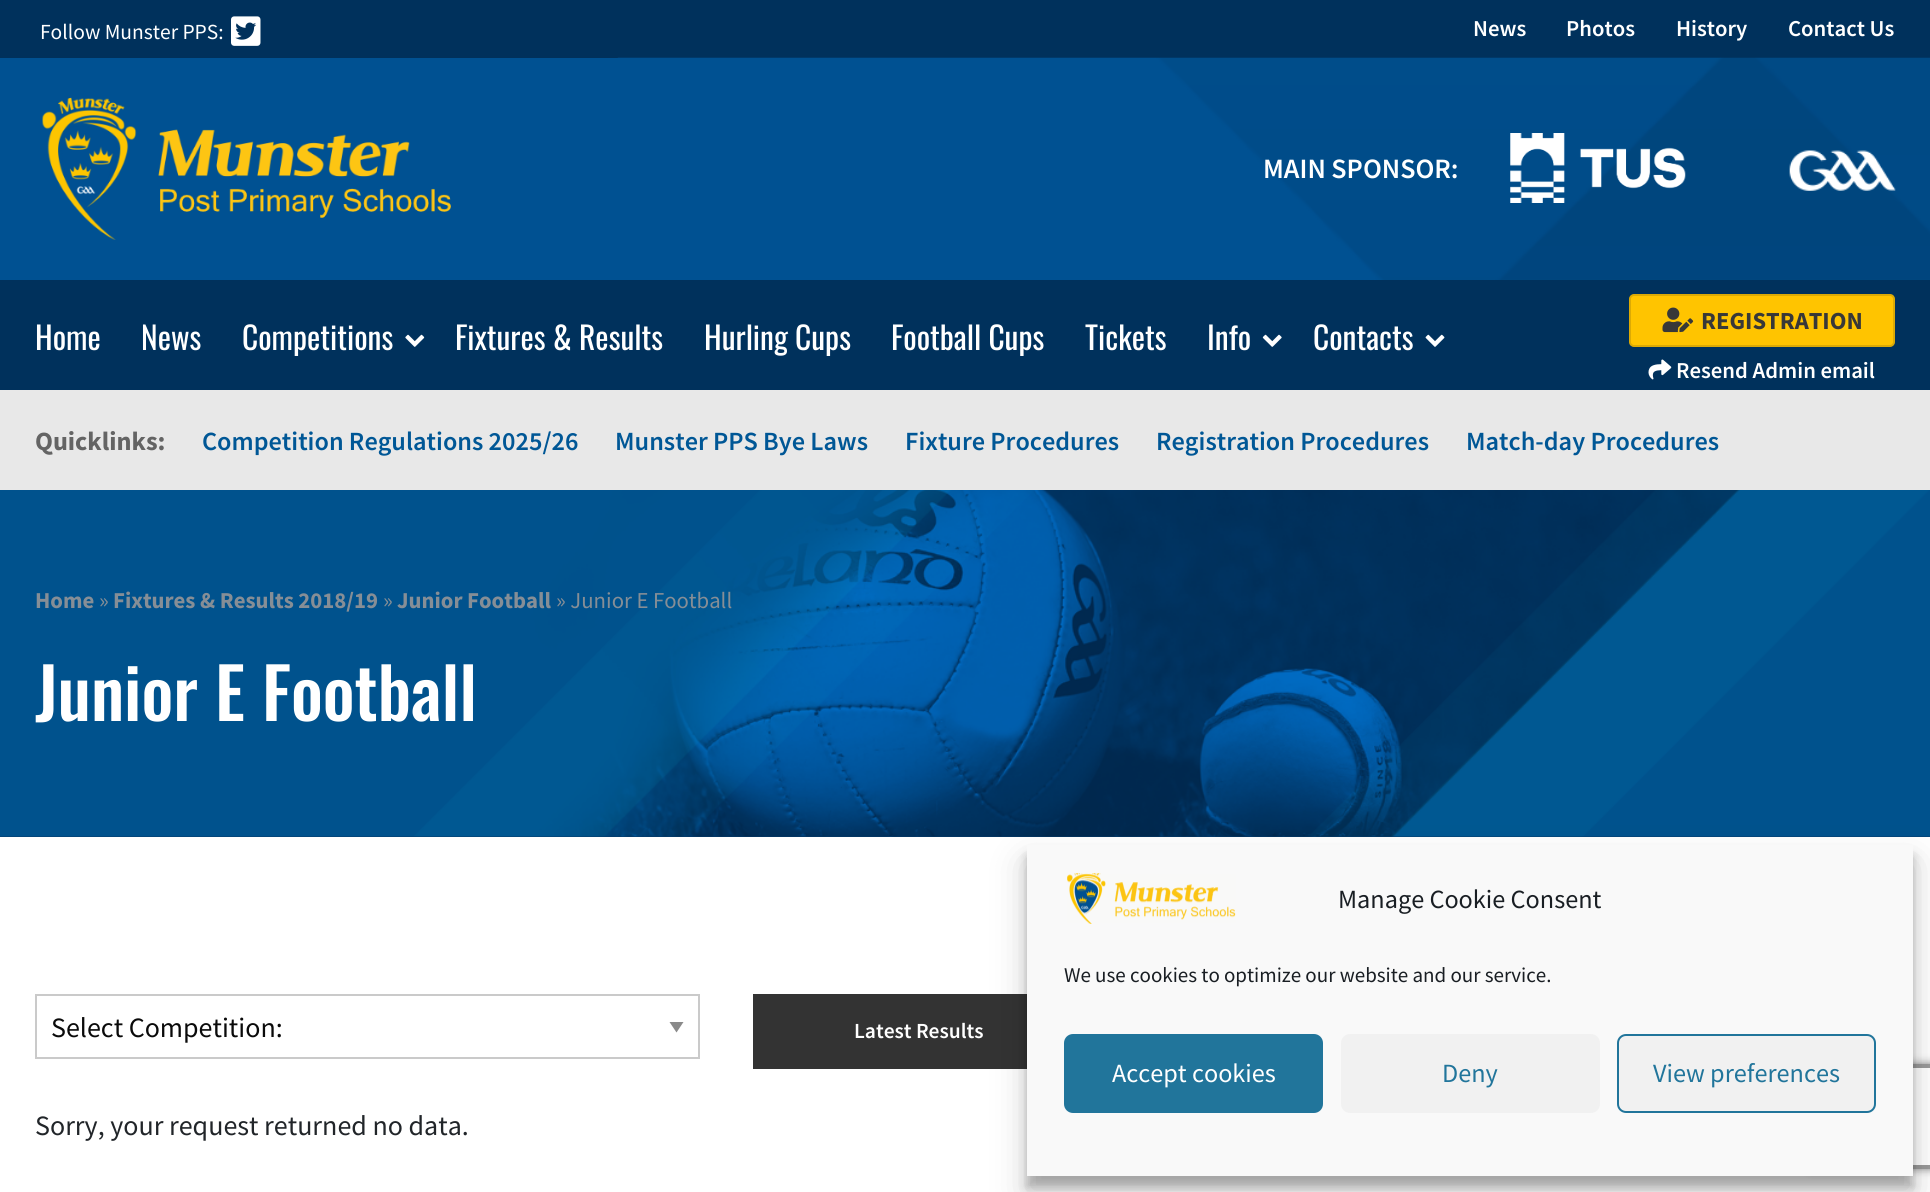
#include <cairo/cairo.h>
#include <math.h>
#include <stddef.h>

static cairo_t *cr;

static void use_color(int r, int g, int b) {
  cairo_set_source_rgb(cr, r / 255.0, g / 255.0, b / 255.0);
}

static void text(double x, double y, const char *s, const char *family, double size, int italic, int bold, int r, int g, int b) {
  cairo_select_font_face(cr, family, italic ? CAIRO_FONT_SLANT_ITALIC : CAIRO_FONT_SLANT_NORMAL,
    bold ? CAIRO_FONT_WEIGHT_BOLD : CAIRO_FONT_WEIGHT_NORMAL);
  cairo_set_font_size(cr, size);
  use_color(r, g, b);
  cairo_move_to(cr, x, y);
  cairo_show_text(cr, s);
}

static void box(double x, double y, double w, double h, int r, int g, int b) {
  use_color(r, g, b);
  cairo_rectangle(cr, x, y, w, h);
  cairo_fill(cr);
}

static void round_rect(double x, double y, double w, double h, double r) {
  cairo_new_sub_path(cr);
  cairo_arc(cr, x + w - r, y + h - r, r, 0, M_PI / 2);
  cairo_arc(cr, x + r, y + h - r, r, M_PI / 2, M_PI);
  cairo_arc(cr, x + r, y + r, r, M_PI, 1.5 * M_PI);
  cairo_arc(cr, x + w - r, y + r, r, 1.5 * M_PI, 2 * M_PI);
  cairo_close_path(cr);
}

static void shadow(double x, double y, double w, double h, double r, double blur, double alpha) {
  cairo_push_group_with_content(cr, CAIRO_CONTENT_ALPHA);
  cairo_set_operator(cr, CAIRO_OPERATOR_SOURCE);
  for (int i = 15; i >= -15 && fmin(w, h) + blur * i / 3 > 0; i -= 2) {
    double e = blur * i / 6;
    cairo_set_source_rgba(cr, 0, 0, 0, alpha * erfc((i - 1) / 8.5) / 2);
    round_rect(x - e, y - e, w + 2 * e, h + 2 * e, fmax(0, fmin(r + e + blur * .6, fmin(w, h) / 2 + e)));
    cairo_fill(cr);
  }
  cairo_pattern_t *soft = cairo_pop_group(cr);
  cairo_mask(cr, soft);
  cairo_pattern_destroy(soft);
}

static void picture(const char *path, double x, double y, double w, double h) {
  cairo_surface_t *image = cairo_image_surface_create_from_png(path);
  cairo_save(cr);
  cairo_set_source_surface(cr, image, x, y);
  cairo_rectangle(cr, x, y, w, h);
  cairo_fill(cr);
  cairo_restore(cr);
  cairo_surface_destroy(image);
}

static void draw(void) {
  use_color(255, 255, 255);
  cairo_paint(cr);
  box(0, 0, 1930, 58, 0, 49, 92);
  picture("img_01.png", 231, 16, 30, 30);
  box(0, 58, 618, 222, 0, 81, 146);
  picture("img_02.png", 617, 57, 1313, 223);
  picture("img_03.png", 42, 97, 409, 143);
  picture("img_04.png", 1510, 133, 176, 70);
  picture("img_05.png", 1789, 150, 107, 41);
  box(0, 280, 1930, 110, 0, 49, 92);
  picture("img_06.png", 405, 334, 20, 13);
  picture("img_07.png", 1262, 334, 20, 13);
  picture("img_08.png", 1425, 334, 20, 13);
  use_color(255, 196, 0);
  round_rect(1630, 295, 264, 51, 4);
  cairo_fill_preserve(cr);
  use_color(220, 170, 5);
  cairo_stroke(cr);
  picture("img_09.png", 1662, 307, 32, 26);
  picture("img_10.png", 1648, 359, 24, 21);
  box(0, 390, 1930, 100, 232, 232, 232);
  box(0, 836, 1930, 1, 7, 58, 105);
  picture("img_11.png", 0, 490, 1930, 347);
  use_color(138, 138, 138);
  cairo_new_path(cr);
  cairo_move_to(cr, 669.5, 1022);
  cairo_line_to(cr, 683.5, 1022);
  cairo_line_to(cr, 676.5, 1032.5);
  cairo_close_path(cr);
  cairo_fill(cr);
  cairo_rectangle(cr, 36, 995, 663, 63);
  use_color(202, 202, 202);
  cairo_stroke(cr);
  box(753, 994, 274, 75, 51, 51, 51);
  cairo_save(cr);
  cairo_set_fill_rule(cr, CAIRO_FILL_RULE_EVEN_ODD);
  cairo_new_path(cr);
  cairo_move_to(cr, 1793, 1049);
  cairo_line_to(cr, 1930, 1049);
  cairo_line_to(cr, 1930, 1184);
  cairo_line_to(cr, 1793, 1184);
  cairo_close_path(cr);
  cairo_move_to(cr, 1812, 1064);
  cairo_line_to(cr, 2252, 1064);
  cairo_curve_to(cr, 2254, 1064, 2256, 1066, 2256, 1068);
  cairo_line_to(cr, 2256, 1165);
  cairo_curve_to(cr, 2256, 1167, 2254, 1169, 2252, 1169);
  cairo_line_to(cr, 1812, 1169);
  cairo_curve_to(cr, 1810, 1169, 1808, 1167, 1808, 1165);
  cairo_line_to(cr, 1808, 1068);
  cairo_curve_to(cr, 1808, 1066, 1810, 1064, 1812, 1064);
  cairo_close_path(cr);
  cairo_clip(cr);
  use_color(128, 128, 128);
  shadow(1808, 1064, 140, 105, 4, 4.5, 1);
  cairo_restore(cr);
  use_color(153, 153, 153);
  cairo_set_fill_rule(cr, CAIRO_FILL_RULE_EVEN_ODD);
  cairo_new_path(cr);
  cairo_move_to(cr, 1812, 1064);
  cairo_curve_to(cr, 1810, 1064, 1808, 1066, 1808, 1068);
  cairo_line_to(cr, 1808, 1165);
  cairo_curve_to(cr, 1808, 1167, 1810, 1169, 1812, 1169);
  cairo_line_to(cr, 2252, 1169);
  cairo_curve_to(cr, 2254, 1169, 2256, 1167, 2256, 1165);
  cairo_line_to(cr, 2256, 1068);
  cairo_curve_to(cr, 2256, 1066, 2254, 1064, 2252, 1064);
  cairo_close_path(cr);
  cairo_move_to(cr, 1812, 1068);
  cairo_line_to(cr, 1812, 1165);
  cairo_line_to(cr, 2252, 1165);
  cairo_line_to(cr, 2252, 1068);
  cairo_close_path(cr);
  cairo_fill(cr);
  use_color(0, 0, 0);
  shadow(1027, 856, 886, 331, 0, 5, 0.23);
  shadow(1027, 863, 886, 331, 0, 17.5, 0.19);
  box(1027, 845, 886, 331, 249, 249, 249);
  picture("img_12.png", 1067, 873, 169, 51);
  use_color(33, 117, 155);
  round_rect(1065, 1035, 257, 77, 8);
  cairo_fill_preserve(cr);
  cairo_stroke(cr);
  use_color(241, 241, 241);
  round_rect(1341, 1034, 259, 79, 9);
  cairo_fill(cr);
  round_rect(1618, 1035, 257, 77, 8);
  cairo_fill_preserve(cr);
  use_color(33, 117, 155);
  cairo_stroke(cr);
  text(40, 39, "Follow Munster PPS:", "Source Sans Pro", 21.5, 0, 0, 255, 255, 255);
  text(1473, 36, "News", "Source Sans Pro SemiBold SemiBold", 22.75, 0, 0, 255, 255, 255);
  text(1566, 36, "Photos", "Source Sans Pro SemiBold SemiBold", 22.75, 0, 0, 255, 255, 255);
  text(1676, 36, "History", "Source Sans Pro SemiBold SemiBold", 22.75, 0, 0, 255, 255, 255);
  text(1788, 36, "Contact Us", "Source Sans Pro SemiBold SemiBold", 22.75, 0, 0, 255, 255, 255);
  text(1263, 178, "MAIN SPONSOR:", "Source Sans Pro SemiBold SemiBold", 28, 0, 0, 255, 255, 255);
  text(35, 350, "Home", "Oswald", 31.5, 0, 0, 255, 255, 255);
  text(141, 350, "News", "Oswald", 31.5, 0, 0, 255, 255, 255);
  text(242, 350, "Competitions", "Oswald", 31.5, 0, 0, 255, 255, 255);
  text(455, 350, "Fixtures & Results", "Oswald", 31.5, 0, 0, 255, 255, 255);
  text(704, 350, "Hurling Cups", "Oswald", 31.5, 0, 0, 255, 255, 255);
  text(891, 350, "Football Cups", "Oswald", 31.5, 0, 0, 255, 255, 255);
  text(1085, 350, "Tickets", "Oswald", 31.5, 0, 0, 255, 255, 255);
  text(1207, 350, "Info", "Oswald", 31.5, 0, 0, 255, 255, 255);
  text(1313, 350, "Contacts", "Oswald", 31.5, 0, 0, 255, 255, 255);
  text(1701, 329, "REGISTRATION", "Source Sans Pro", 24.5, 0, 1, 56, 56, 56);
  text(1676, 378, "Resend Admin email", "Source Sans Pro SemiBold SemiBold", 22.75, 0, 0, 255, 255, 255);
  text(35, 450, "Quicklinks:", "Source Sans Pro", 26.25, 0, 1, 100, 100, 100);
  text(202, 450, "Competition Regulations 2025/26", "Source Sans Pro SemiBold SemiBold", 26.25, 0, 0, 0, 87, 150);
  text(615, 450, "Munster PPS Bye Laws", "Source Sans Pro SemiBold SemiBold", 26.25, 0, 0, 0, 87, 150);
  text(905, 450, "Fixture Procedures", "Source Sans Pro SemiBold SemiBold", 26.25, 0, 0, 0, 87, 150);
  text(1156, 450, "Registration Procedures", "Source Sans Pro SemiBold SemiBold", 26.25, 0, 0, 0, 87, 150);
  text(1466, 450, "Match-day Procedures", "Source Sans Pro SemiBold SemiBold", 26.25, 0, 0, 0, 87, 150);
  text(35, 608, "Home", "Source Sans Pro", 22.75, 0, 1, 134, 142, 150);
  text(99, 608, "»", "Source Sans Pro", 22.75, 0, 0, 134, 142, 150);
  text(113, 608, "Fixtures & Results 2018/19", "Source Sans Pro", 22.75, 0, 1, 134, 142, 150);
  text(383, 608, "»", "Source Sans Pro", 22.75, 0, 0, 134, 142, 150);
  text(397, 608, "Junior Football", "Source Sans Pro", 22.75, 0, 1, 134, 142, 150);
  text(556, 608, "» Junior E Football", "Source Sans Pro", 22.75, 0, 0, 134, 142, 150);
  text(35, 721, "Junior E Football", "Oswald Medium", 70, 0, 0, 255, 255, 255);
  text(51, 1037, "Select Competition:", "Source Sans Pro", 28, 0, 0, 10, 10, 10);
  text(854, 1038, "Latest Results", "Source Sans Pro SemiBold SemiBold", 21.5, 0, 0, 255, 255, 255);
  text(35, 1135, "Sorry, your request returned no data.", "Source Sans Pro", 28, 0, 0, 33, 37, 41);
  text(1338, 908, "Manage Cookie Consent", "Source Sans Pro", 26.25, 0, 0, 25, 30, 35);
  text(1064, 982, "We use cookies to optimize our website and our service.", "Source Sans Pro", 21, 0, 0, 25, 30, 35);
  text(1112, 1082, "Accept cookies", "Source Sans Pro", 26.25, 0, 0, 255, 255, 255);
  text(1442, 1082, "Deny", "Source Sans Pro", 26.25, 0, 0, 33, 117, 155);
  text(1653, 1082, "View preferences", "Source Sans Pro", 26.25, 0, 0, 33, 117, 155);
}

int main(void) {
  cairo_surface_t *surface = cairo_image_surface_create(CAIRO_FORMAT_RGB24, 1930, 1192);
  cr = cairo_create(surface);
  cairo_font_options_t *options = cairo_font_options_create();
  cairo_font_options_set_hint_metrics(options, CAIRO_HINT_METRICS_OFF);
  cairo_font_options_set_hint_style(options, CAIRO_HINT_STYLE_NONE);
  cairo_set_font_options(cr, options);
  cairo_set_miter_limit(cr, 4);
  draw();
  cairo_surface_write_to_png(surface, "out.png");
  cairo_font_options_destroy(options);
  cairo_destroy(cr);
  cairo_surface_destroy(surface);
  return 0;
}
